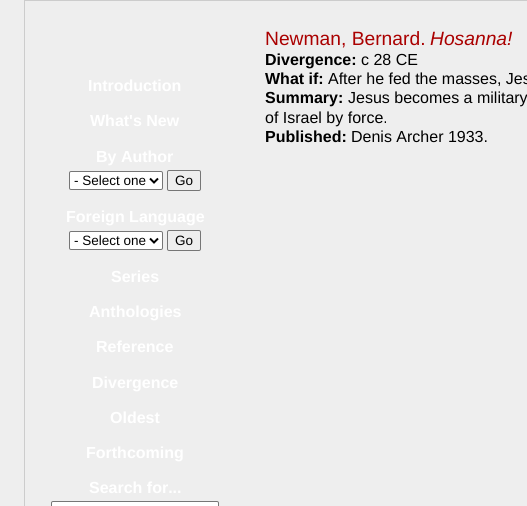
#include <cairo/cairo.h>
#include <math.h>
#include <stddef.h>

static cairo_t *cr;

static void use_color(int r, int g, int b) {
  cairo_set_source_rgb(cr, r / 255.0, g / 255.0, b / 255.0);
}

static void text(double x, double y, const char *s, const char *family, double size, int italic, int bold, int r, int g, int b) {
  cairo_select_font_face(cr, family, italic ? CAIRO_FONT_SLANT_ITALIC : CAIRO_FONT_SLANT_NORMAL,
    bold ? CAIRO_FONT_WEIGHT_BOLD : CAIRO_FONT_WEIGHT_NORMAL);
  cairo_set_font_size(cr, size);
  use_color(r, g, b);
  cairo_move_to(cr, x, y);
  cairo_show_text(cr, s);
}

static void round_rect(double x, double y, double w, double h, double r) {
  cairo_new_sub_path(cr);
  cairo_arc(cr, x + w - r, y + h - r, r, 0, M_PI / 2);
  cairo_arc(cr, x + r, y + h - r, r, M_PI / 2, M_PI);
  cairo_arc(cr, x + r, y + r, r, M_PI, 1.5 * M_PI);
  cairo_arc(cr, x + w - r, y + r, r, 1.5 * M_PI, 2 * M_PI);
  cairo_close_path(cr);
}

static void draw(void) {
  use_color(238, 238, 238);
  cairo_paint(cr);
  cairo_rectangle(cr, 24.5, 0.5, 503, 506);
  use_color(204, 204, 204);
  cairo_set_line_width(cr, 1);
  cairo_stroke(cr);
  use_color(255, 255, 255);
  round_rect(69.5, 171.5, 93, 18, 1.5);
  cairo_fill_preserve(cr);
  use_color(118, 118, 118);
  cairo_stroke(cr);
  cairo_new_path(cr);
  cairo_move_to(cr, 150, 178.5);
  cairo_line_to(cr, 154, 182.5);
  cairo_line_to(cr, 158, 178.5);
  use_color(0, 0, 0);
  cairo_set_line_width(cr, 2);
  cairo_stroke(cr);
  round_rect(167.5, 170.5, 33, 20, 1.5);
  use_color(118, 118, 118);
  cairo_set_line_width(cr, 1);
  cairo_stroke(cr);
  use_color(255, 255, 255);
  round_rect(69.5, 231.5, 93, 18, 1.5);
  cairo_fill_preserve(cr);
  use_color(118, 118, 118);
  cairo_stroke(cr);
  cairo_new_path(cr);
  cairo_move_to(cr, 150, 238.5);
  cairo_line_to(cr, 154, 242.5);
  cairo_line_to(cr, 158, 238.5);
  use_color(0, 0, 0);
  cairo_set_line_width(cr, 2);
  cairo_stroke(cr);
  round_rect(167.5, 230.5, 33, 20, 1.5);
  use_color(118, 118, 118);
  cairo_set_line_width(cr, 1);
  cairo_stroke(cr);
  use_color(255, 255, 255);
  round_rect(51.5, 501.5, 167, 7, 1.5);
  cairo_fill_preserve(cr);
  use_color(118, 118, 118);
  cairo_stroke(cr);
  text(88, 91, "Introduction", "Liberation Sans", 16, 0, 1, 255, 255, 255);
  text(90, 126, "What's New", "Liberation Sans", 16, 0, 1, 255, 255, 255);
  text(96, 162, "By Author", "Liberation Sans", 16, 0, 1, 255, 255, 255);
  text(74, 185, "- Select one", "Liberation Sans", 13.5, 0, 0, 0, 0, 0);
  text(175, 185, "Go", "Liberation Sans", 13.5, 0, 0, 0, 0, 0);
  text(66, 222, "Foreign Language", "Liberation Sans", 16, 0, 1, 255, 255, 255);
  text(74, 245, "- Select one", "Liberation Sans", 13.5, 0, 0, 0, 0, 0);
  text(175, 245, "Go", "Liberation Sans", 13.5, 0, 0, 0, 0, 0);
  text(111, 282, "Series", "Liberation Sans", 16, 0, 1, 255, 255, 255);
  text(89, 317, "Anthologies", "Liberation Sans", 16, 0, 1, 255, 255, 255);
  text(96, 352, "Reference", "Liberation Sans", 16, 0, 1, 255, 255, 255);
  text(92, 388, "Divergence", "Liberation Sans", 16, 0, 1, 255, 255, 255);
  text(110, 423, "Oldest", "Liberation Sans", 16, 0, 1, 255, 255, 255);
  text(86, 458, "Forthcoming", "Liberation Sans", 16, 0, 1, 255, 255, 255);
  text(89, 493, "Search for...", "Liberation Sans", 16, 0, 1, 255, 255, 255);
  text(265, 45, "Newman, Bernard.", "Liberation Sans", 19.25, 0, 0, 170, 0, 0);
  text(430, 45, "Hosanna!", "Liberation Sans", 19.25, 1, 0, 170, 0, 0);
  text(265, 65, "Divergence:", "Liberation Sans", 16, 0, 1, 0, 0, 0);
  text(361, 65, "c 28 CE", "Liberation Sans", 16, 0, 0, 0, 0, 0);
  text(265, 84, "What if:", "Liberation Sans", 16, 0, 1, 0, 0, 0);
  text(328, 84, "After he fed the masses, Jes", "Liberation Sans", 16, 0, 0, 0, 0, 0);
  text(265, 103, "Summary:", "Liberation Sans", 16, 0, 1, 0, 0, 0);
  text(348, 103, "Jesus becomes a military", "Liberation Sans", 16, 0, 0, 0, 0, 0);
  text(265, 123, "of Israel by force.", "Liberation Sans", 16, 0, 0, 0, 0, 0);
  text(265, 142, "Published:", "Liberation Sans", 16, 0, 1, 0, 0, 0);
  text(351, 142, "Denis Archer 1933.", "Liberation Sans", 16, 0, 0, 0, 0, 0);
}

int main(void) {
  cairo_surface_t *surface = cairo_image_surface_create(CAIRO_FORMAT_RGB24, 527, 506);
  cr = cairo_create(surface);
  cairo_font_options_t *options = cairo_font_options_create();
  cairo_font_options_set_hint_metrics(options, CAIRO_HINT_METRICS_OFF);
  cairo_font_options_set_hint_style(options, CAIRO_HINT_STYLE_NONE);
  cairo_set_font_options(cr, options);
  cairo_set_miter_limit(cr, 4);
  draw();
  cairo_surface_write_to_png(surface, "out.png");
  cairo_font_options_destroy(options);
  cairo_destroy(cr);
  cairo_surface_destroy(surface);
  return 0;
}
